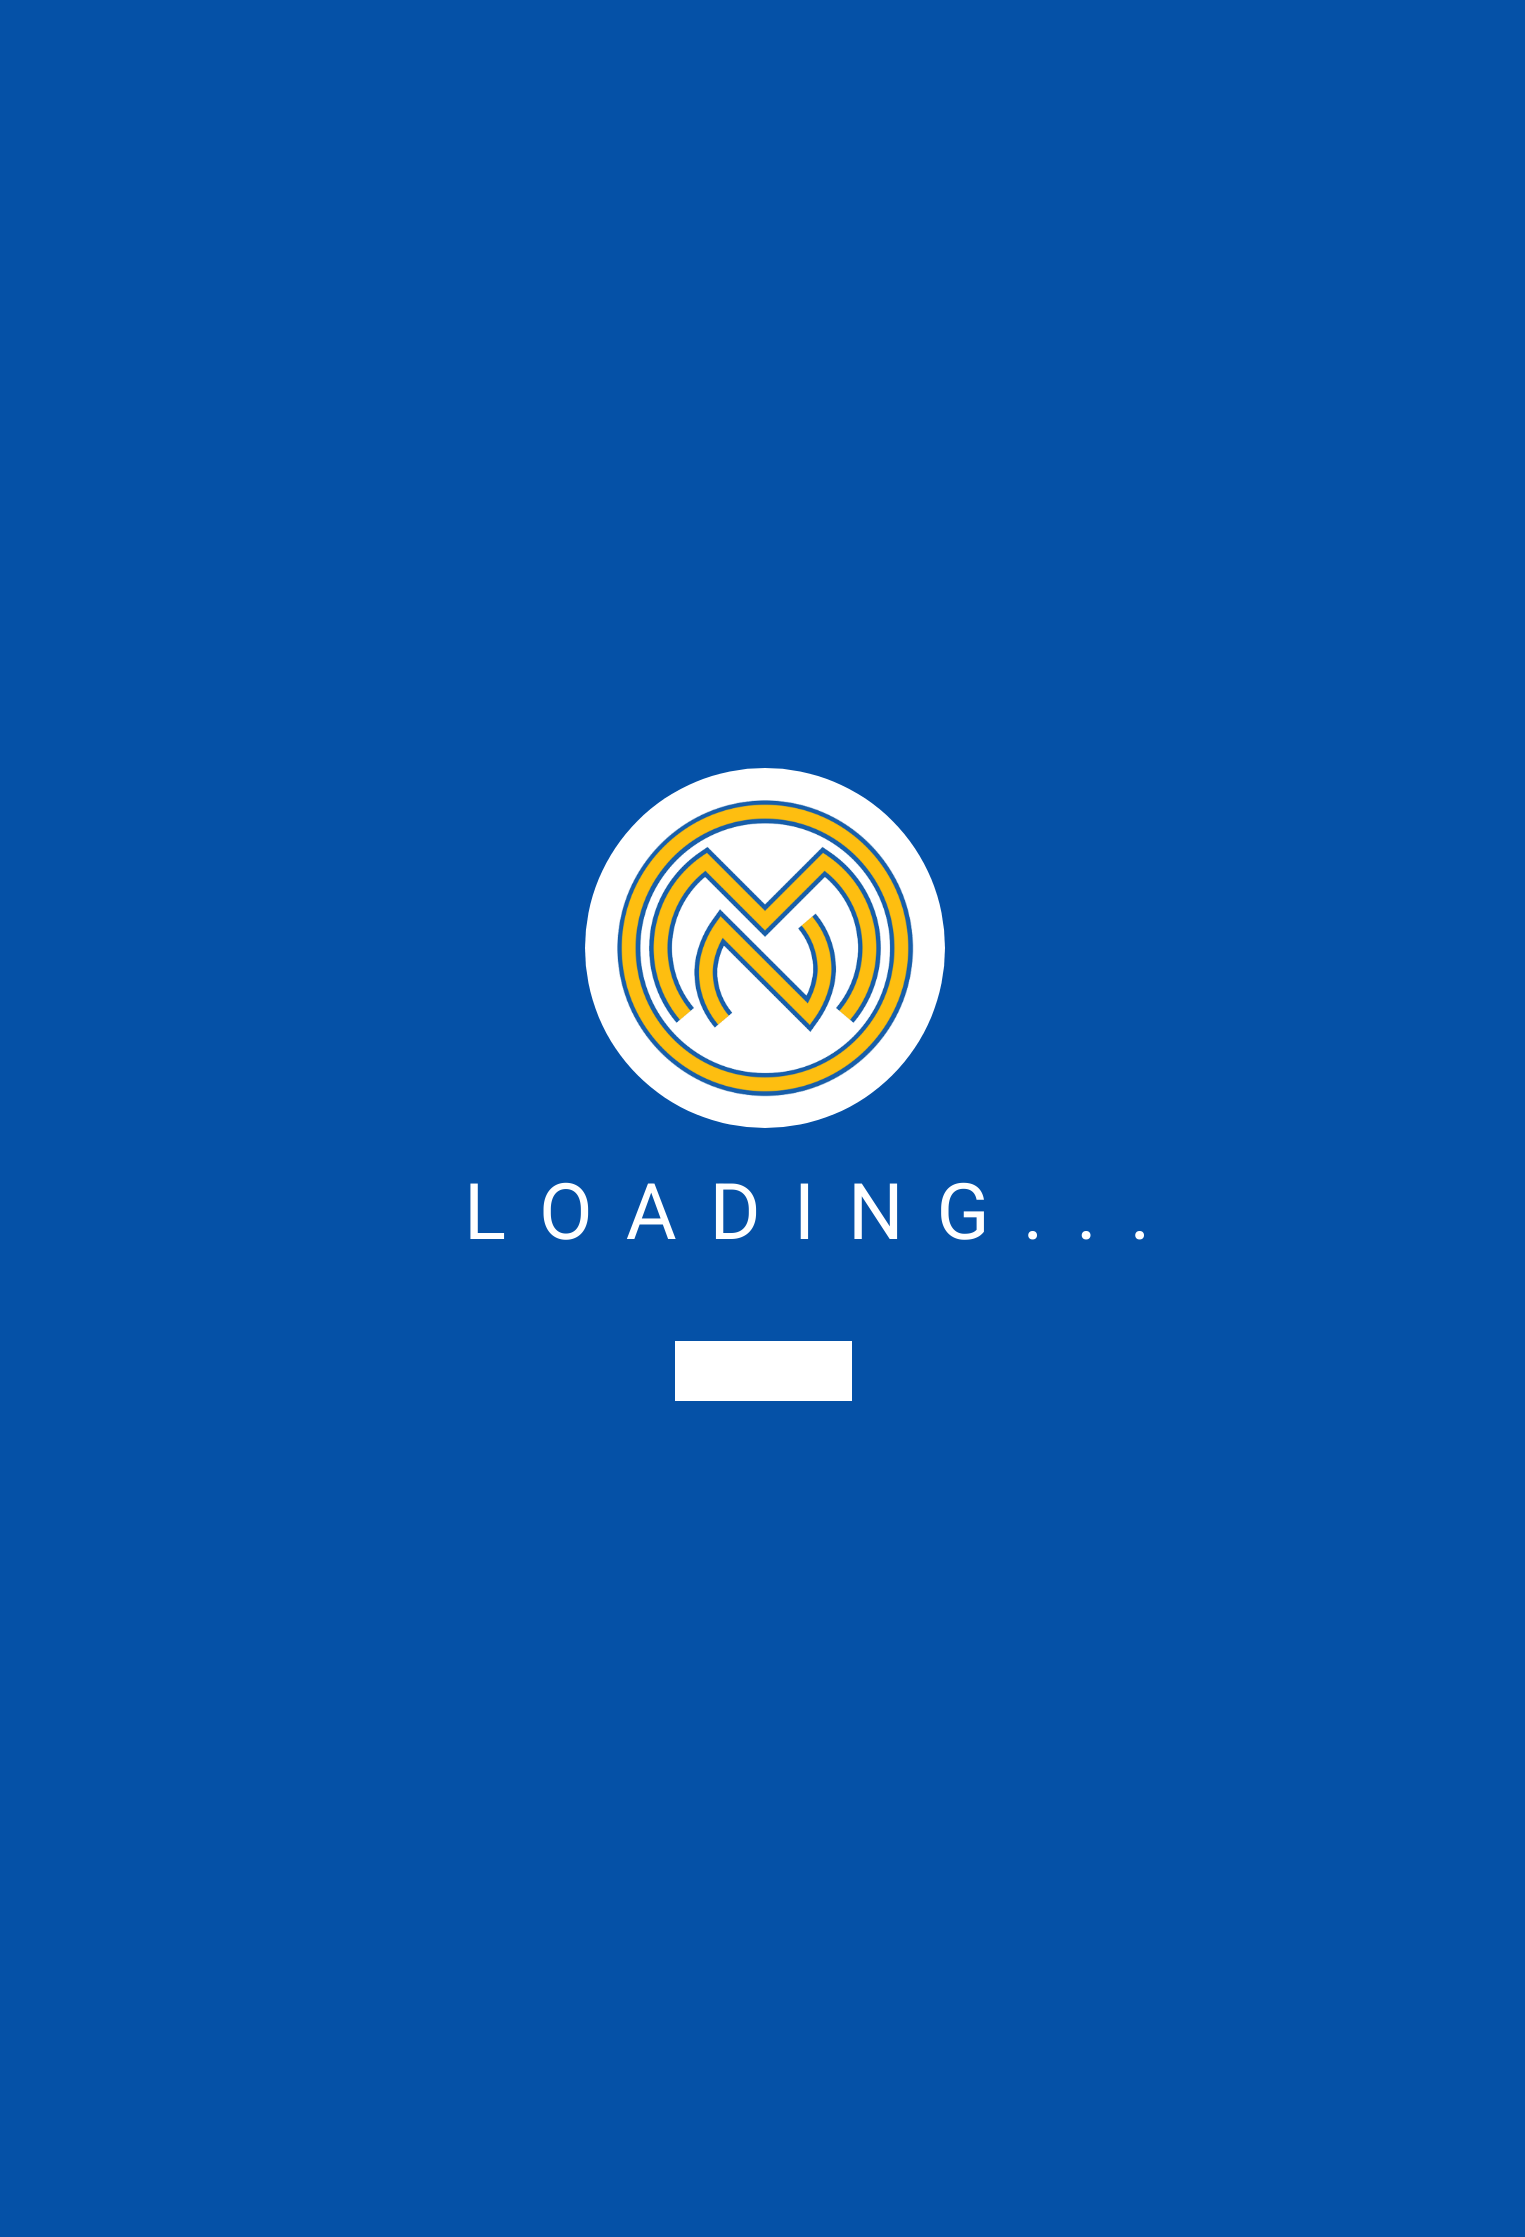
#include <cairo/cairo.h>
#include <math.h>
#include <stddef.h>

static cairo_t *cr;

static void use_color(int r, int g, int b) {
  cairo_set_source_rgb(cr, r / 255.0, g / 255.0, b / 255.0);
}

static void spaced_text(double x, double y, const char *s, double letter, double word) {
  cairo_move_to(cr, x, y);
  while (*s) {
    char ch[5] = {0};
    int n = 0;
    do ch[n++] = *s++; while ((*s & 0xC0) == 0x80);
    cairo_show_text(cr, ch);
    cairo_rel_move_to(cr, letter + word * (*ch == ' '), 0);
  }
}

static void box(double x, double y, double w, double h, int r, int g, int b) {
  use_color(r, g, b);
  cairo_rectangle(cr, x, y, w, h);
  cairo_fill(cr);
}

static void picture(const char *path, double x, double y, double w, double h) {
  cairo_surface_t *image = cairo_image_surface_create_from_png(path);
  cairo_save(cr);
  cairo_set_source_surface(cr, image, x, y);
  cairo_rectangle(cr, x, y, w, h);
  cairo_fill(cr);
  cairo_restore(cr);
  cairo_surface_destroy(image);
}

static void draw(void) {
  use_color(5, 81, 167);
  cairo_paint(cr);
  picture("img_01.png", 585, 768, 360, 360);
  box(675, 1341, 177, 60, 255, 255, 255);
  cairo_select_font_face(cr, "Roboto", CAIRO_FONT_SLANT_NORMAL, CAIRO_FONT_WEIGHT_NORMAL);
  cairo_set_font_size(cr, 78);
  spaced_text(464, 1239, "LOADING...", 33, 0);
}

int main(void) {
  cairo_surface_t *surface = cairo_image_surface_create(CAIRO_FORMAT_RGB24, 1525, 2237);
  cr = cairo_create(surface);
  cairo_font_options_t *options = cairo_font_options_create();
  cairo_font_options_set_hint_metrics(options, CAIRO_HINT_METRICS_OFF);
  cairo_font_options_set_hint_style(options, CAIRO_HINT_STYLE_NONE);
  cairo_set_font_options(cr, options);
  cairo_set_miter_limit(cr, 4);
  draw();
  cairo_surface_write_to_png(surface, "out.png");
  cairo_font_options_destroy(options);
  cairo_destroy(cr);
  cairo_surface_destroy(surface);
  return 0;
}
